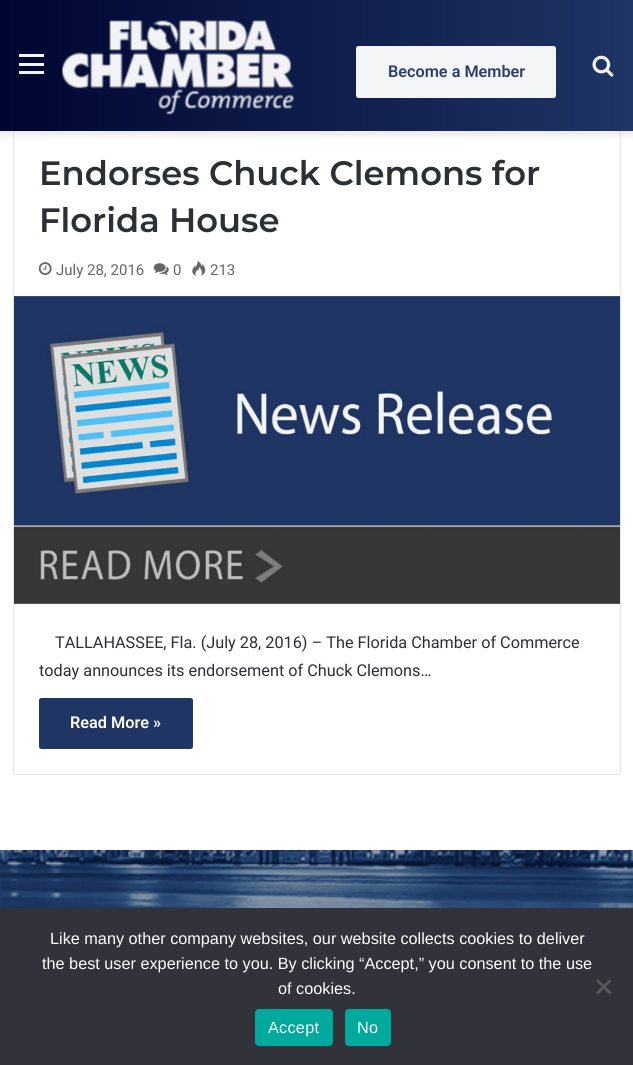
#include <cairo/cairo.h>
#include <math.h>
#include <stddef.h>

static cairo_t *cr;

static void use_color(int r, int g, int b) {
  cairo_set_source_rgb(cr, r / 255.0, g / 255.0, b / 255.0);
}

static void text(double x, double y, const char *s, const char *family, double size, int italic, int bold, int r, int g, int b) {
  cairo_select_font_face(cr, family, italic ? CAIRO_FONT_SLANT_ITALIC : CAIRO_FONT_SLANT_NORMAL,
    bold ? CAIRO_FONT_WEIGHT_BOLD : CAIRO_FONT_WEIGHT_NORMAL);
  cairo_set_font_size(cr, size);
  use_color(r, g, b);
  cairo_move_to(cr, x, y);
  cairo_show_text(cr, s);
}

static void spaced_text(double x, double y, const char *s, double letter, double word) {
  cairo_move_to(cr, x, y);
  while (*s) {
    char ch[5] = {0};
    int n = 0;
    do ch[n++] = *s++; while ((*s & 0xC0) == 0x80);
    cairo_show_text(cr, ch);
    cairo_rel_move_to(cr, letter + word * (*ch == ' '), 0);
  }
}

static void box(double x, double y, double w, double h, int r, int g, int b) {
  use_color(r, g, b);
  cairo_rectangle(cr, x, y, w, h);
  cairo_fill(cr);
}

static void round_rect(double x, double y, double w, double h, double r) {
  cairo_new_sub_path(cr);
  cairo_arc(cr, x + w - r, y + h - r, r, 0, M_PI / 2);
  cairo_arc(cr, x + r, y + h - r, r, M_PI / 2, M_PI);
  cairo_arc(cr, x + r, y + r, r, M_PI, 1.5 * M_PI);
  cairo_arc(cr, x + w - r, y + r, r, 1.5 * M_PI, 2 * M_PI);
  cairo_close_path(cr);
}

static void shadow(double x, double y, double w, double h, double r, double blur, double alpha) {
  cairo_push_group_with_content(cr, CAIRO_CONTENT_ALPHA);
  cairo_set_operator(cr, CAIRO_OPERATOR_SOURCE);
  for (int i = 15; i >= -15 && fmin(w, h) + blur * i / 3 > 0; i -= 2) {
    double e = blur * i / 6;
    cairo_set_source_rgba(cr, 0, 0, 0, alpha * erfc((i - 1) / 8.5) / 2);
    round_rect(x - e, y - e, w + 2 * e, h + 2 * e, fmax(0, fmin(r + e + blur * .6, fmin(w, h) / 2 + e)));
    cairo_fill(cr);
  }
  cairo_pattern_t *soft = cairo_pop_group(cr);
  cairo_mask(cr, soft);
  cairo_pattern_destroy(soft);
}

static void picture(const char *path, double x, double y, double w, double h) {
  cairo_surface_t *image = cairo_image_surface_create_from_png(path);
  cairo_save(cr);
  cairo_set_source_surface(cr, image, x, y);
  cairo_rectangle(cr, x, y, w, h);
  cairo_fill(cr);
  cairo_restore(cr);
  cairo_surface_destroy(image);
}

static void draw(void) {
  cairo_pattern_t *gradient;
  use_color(255, 255, 255);
  cairo_paint(cr);
  round_rect(13.5, 44.5, 607, 730, 2);
  use_color(230, 230, 230);
  cairo_set_line_width(cr, 1);
  cairo_stroke(cr);
  use_color(0, 0, 0);
  shadow(0, 4, 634, 131, 0, 4.5, 0.1);
  gradient = cairo_pattern_create_linear(0, 66, 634, 66);
  cairo_pattern_add_color_stop_rgba(gradient, 0, 0, 0.02, 0.192, 1);
  cairo_pattern_add_color_stop_rgba(gradient, 1, 0.122, 0.208, 0.392, 1);
  cairo_set_source(cr, gradient);
  cairo_pattern_destroy(gradient);
  cairo_rectangle(cr, 0, 0, 633, 131);
  cairo_fill(cr);
  box(19, 63, 25, 3, 242, 243, 245);
  box(19, 54, 25, 3, 242, 243, 245);
  box(19, 71, 25, 3, 242, 243, 245);
  picture("img_01.png", 62, 20, 233, 95);
  cairo_set_source_rgba(cr, 1, 1, 1, 0.95);
  round_rect(356, 46, 200, 52, 2.5);
  cairo_fill(cr);
  picture("img_02.png", 592, 55, 22, 22);
  picture("img_03.png", 39, 262, 13, 13);
  picture("img_04.png", 153, 263, 16, 12);
  picture("img_05.png", 192, 261, 14, 15);
  picture("img_06.png", 14, 296, 606, 308);
  use_color(31, 53, 100);
  round_rect(39, 698, 154, 51, 2.5);
  cairo_fill(cr);
  box(0, 850, 633, 58, 15, 42, 99);
  picture("img_07.png", 0, 850, 633, 58);
  box(0, 908, 633, 157, 50, 50, 58);
  use_color(89, 89, 93);
  cairo_new_path(cr);
  cairo_move_to(cr, 609.5, 979.5);
  cairo_line_to(cr, 611.5, 981);
  cairo_line_to(cr, 598, 994.5);
  cairo_line_to(cr, 596, 992.5);
  cairo_close_path(cr);
  cairo_fill(cr);
  cairo_new_path(cr);
  cairo_move_to(cr, 596, 981);
  cairo_line_to(cr, 598, 979.5);
  cairo_line_to(cr, 611.5, 992.5);
  cairo_line_to(cr, 609.5, 994.5);
  cairo_close_path(cr);
  cairo_fill(cr);
  use_color(0, 169, 157);
  round_rect(255, 1009, 78, 37, 4);
  cairo_fill(cr);
  round_rect(345, 1009, 46, 37, 4);
  cairo_fill(cr);
  text(388, 77, "Become a Member", "Roboto SemiBold", 16.25, 0, 0, 42, 63, 107);
  text(39, 185, "Endorses Chuck Clemons for", "Montserrat SemiBold", 33.75, 0, 0, 44, 47, 52);
  text(39, 232, "Florida House", "Montserrat SemiBold", 33.75, 0, 0, 44, 47, 52);
  text(56, 275, "July 28, 2016", "Roboto", 15, 0, 0, 102, 102, 102);
  text(173, 275, "0", "Roboto", 15, 0, 0, 102, 102, 102);
  text(210, 275, "213", "Roboto", 15, 0, 0, 102, 102, 102);
  text(55, 648, "TALLAHASSEE, Fla. (July 28, 2016) – The Florida Chamber of Commerce", "Roboto", 16.25, 0, 0, 44, 47, 52);
  text(39, 676, "today announces its endorsement of Chuck Clemons…", "Roboto", 16.25, 0, 0, 44, 47, 52);
  text(70, 728, "Read More »", "Roboto SemiBold", 16.25, 0, 0, 255, 255, 255);
  text(50, 944, "Like many other company websites, our website collects cookies to deliver", "Liberation Sans", 16.25, 0, 0, 255, 255, 255);
  text(42, 969, "the best user experience to you. By clicking “Accept,” you consent to the use", "Liberation Sans", 16.25, 0, 0, 255, 255, 255);
  text(278, 994, "of cookies.", "Liberation Sans", 16.25, 0, 0, 255, 255, 255);
  spaced_text(268, 1033, "Accept", 0.25, 0);
  spaced_text(357, 1033, "No", 0.25, 0);
}

int main(void) {
  cairo_surface_t *surface = cairo_image_surface_create(CAIRO_FORMAT_RGB24, 633, 1065);
  cr = cairo_create(surface);
  cairo_font_options_t *options = cairo_font_options_create();
  cairo_font_options_set_hint_metrics(options, CAIRO_HINT_METRICS_OFF);
  cairo_font_options_set_hint_style(options, CAIRO_HINT_STYLE_NONE);
  cairo_set_font_options(cr, options);
  cairo_set_miter_limit(cr, 4);
  draw();
  cairo_surface_write_to_png(surface, "out.png");
  cairo_font_options_destroy(options);
  cairo_destroy(cr);
  cairo_surface_destroy(surface);
  return 0;
}
